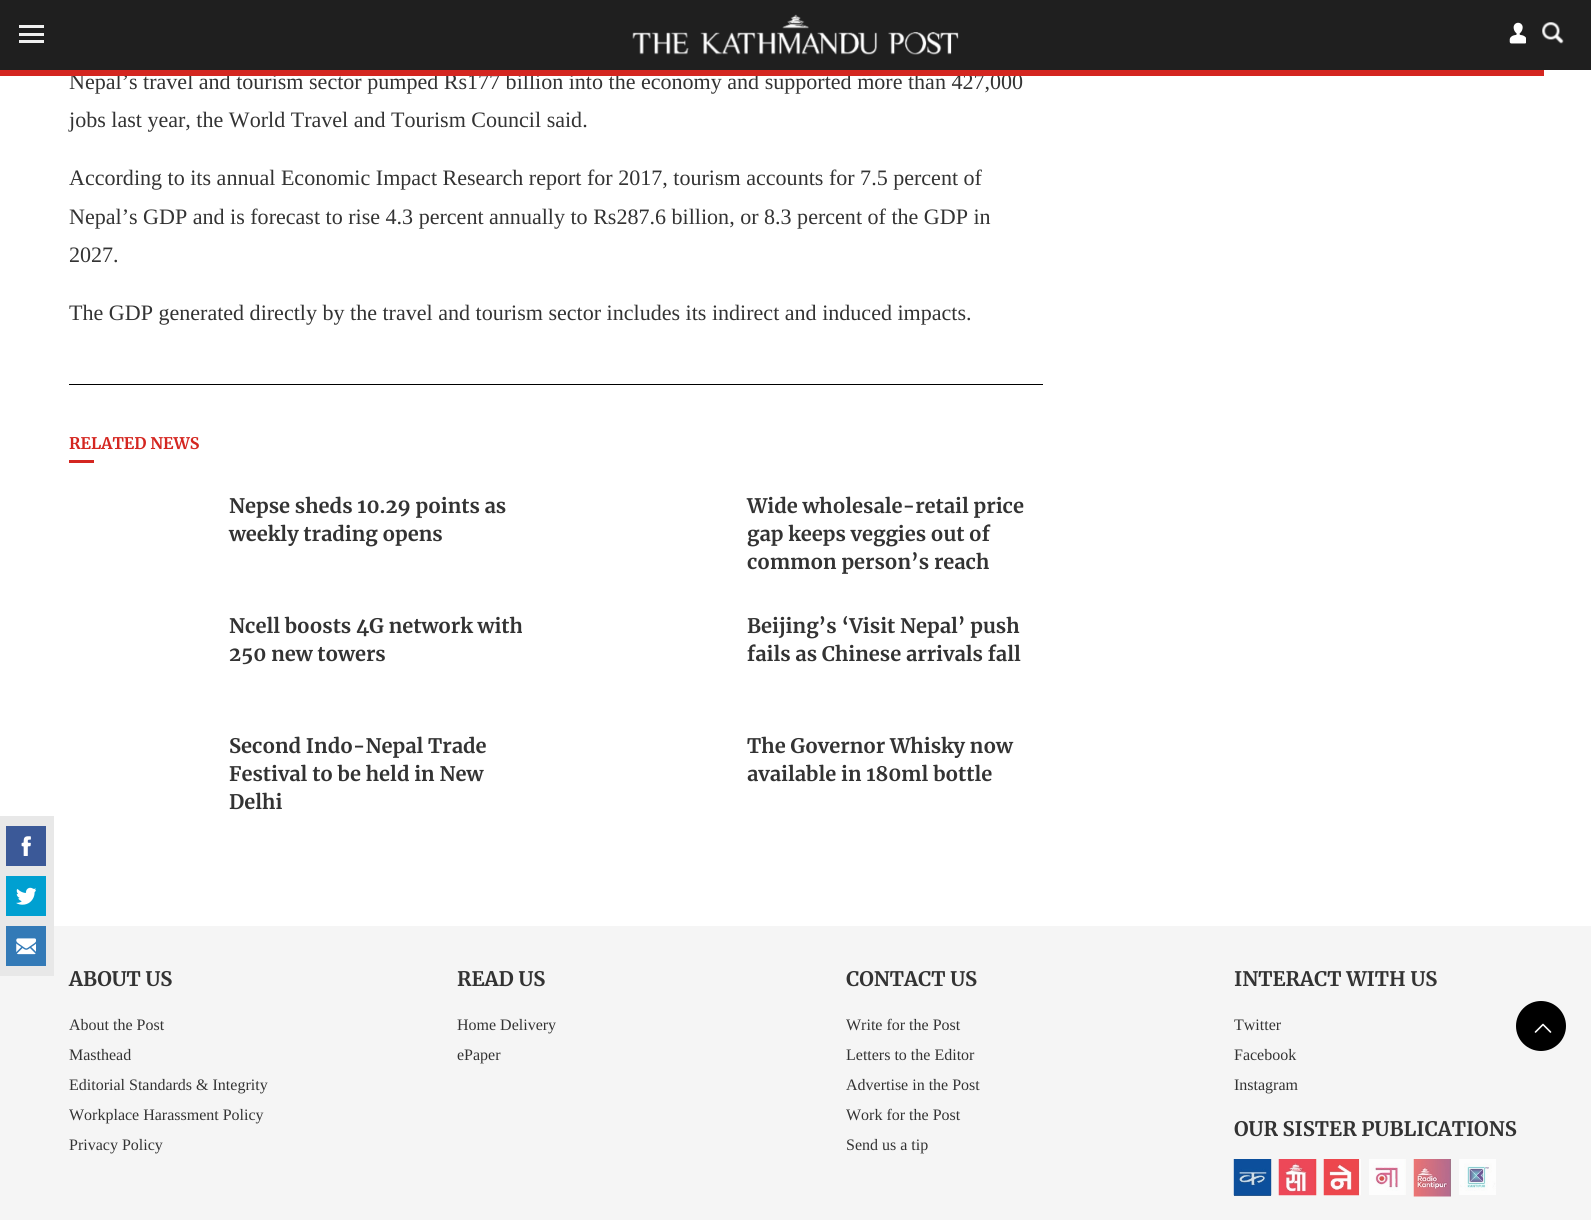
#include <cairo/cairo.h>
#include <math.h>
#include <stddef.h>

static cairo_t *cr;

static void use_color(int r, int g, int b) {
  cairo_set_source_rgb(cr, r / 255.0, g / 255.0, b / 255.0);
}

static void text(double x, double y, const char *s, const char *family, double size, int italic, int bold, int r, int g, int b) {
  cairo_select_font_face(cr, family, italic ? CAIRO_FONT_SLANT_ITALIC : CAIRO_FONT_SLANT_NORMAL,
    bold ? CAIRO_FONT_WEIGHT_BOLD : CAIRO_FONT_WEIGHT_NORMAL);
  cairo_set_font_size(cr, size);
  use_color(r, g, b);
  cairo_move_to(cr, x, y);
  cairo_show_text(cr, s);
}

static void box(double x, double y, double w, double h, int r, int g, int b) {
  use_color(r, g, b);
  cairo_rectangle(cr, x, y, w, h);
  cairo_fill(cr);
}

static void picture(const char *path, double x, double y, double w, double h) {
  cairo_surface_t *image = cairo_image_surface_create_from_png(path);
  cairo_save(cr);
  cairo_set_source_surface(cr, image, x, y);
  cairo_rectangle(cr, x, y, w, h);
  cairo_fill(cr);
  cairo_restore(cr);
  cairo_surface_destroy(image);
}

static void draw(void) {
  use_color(255, 255, 255);
  cairo_paint(cr);
  box(0, 0, 1591, 70, 31, 31, 31);
  box(19, 25, 25, 3, 240, 240, 240);
  box(19, 33, 25, 3, 240, 240, 240);
  box(19, 40, 25, 3, 240, 240, 240);
  picture("img_01.png", 1509, 22, 17, 22);
  picture("img_02.png", 1542, 22, 22, 22);
  picture("img_03.png", 632, 14, 327, 41);
  box(69, 384, 974, 1, 0, 0, 0);
  box(69, 460, 25, 3, 212, 38, 32);
  box(0, 926, 1591, 294, 245, 245, 245);
  box(0, 816, 54, 160, 232, 232, 232);
  box(6, 826, 40, 40, 59, 89, 152);
  picture("img_04.png", 21, 836, 10, 20);
  box(6, 876, 40, 40, 0, 160, 209);
  picture("img_05.png", 16, 887, 20, 18);
  box(6, 926, 40, 40, 51, 122, 183);
  picture("img_06.png", 16, 938, 20, 17);
  box(1234, 1159, 37, 37, 49, 90, 136);
  picture("img_07.png", 1233, 1159, 39, 37);
  picture("img_08.png", 1278, 1159, 39, 37);
  picture("img_09.png", 1323, 1159, 38, 37);
  picture("img_10.png", 1369, 1159, 37, 36);
  picture("img_11.png", 1413, 1159, 38, 38);
  picture("img_12.png", 1459, 1159, 37, 36);
  use_color(0, 0, 0);
  cairo_arc(cr, 1541, 1026, 25, 0, 2 * M_PI);
  cairo_fill(cr);
  cairo_new_path(cr);
  cairo_move_to(cr, 1543, 1024.5);
  cairo_line_to(cr, 1550.5, 1032);
  cairo_move_to(cr, 1535.5, 1032);
  cairo_line_to(cr, 1543, 1024.5);
  use_color(255, 255, 255);
  cairo_set_line_width(cr, 1.6);
  cairo_set_line_cap(cr, CAIRO_LINE_CAP_ROUND);
  cairo_set_line_join(cr, CAIRO_LINE_JOIN_ROUND);
  cairo_stroke(cr);
  text(69, 89, "Nepal’s travel and tourism sector pumped Rs177 billion into the economy and supported more than 427,000", "Liberation Serif", 22.05, 0, 0, 51, 51, 51);
  box(0, 70, 1544, 6, 212, 38, 32);
  text(69, 127, "jobs last year, the World Travel and Tourism Council said.", "Liberation Serif", 22.05, 0, 0, 51, 51, 51);
  text(69, 185, "According to its annual Economic Impact Research report for 2017, tourism accounts for 7.5 percent of", "Liberation Serif", 22.05, 0, 0, 51, 51, 51);
  text(69, 224, "Nepal’s GDP and is forecast to rise 4.3 percent annually to Rs287.6 billion, or 8.3 percent of the GDP in", "Liberation Serif", 22.05, 0, 0, 51, 51, 51);
  text(69, 262, "2027.", "Liberation Serif", 22.05, 0, 0, 51, 51, 51);
  text(69, 320, "The GDP generated directly by the travel and tourism sector includes its indirect and induced impacts.", "Liberation Serif", 22.05, 0, 0, 51, 51, 51);
  text(69, 449, "RELATED NEWS", "Merriweather", 16, 0, 1, 212, 38, 32);
  text(229, 513, "Nepse sheds 10.29 points as", "Merriweather", 20, 0, 1, 51, 51, 51);
  text(229, 541, "weekly trading opens", "Merriweather", 20, 0, 1, 51, 51, 51);
  text(747, 513, "Wide wholesale-retail price", "Merriweather", 20, 0, 1, 51, 51, 51);
  text(747, 541, "gap keeps veggies out of", "Merriweather", 20, 0, 1, 51, 51, 51);
  text(747, 569, "common person’s reach", "Merriweather", 20, 0, 1, 51, 51, 51);
  text(229, 633, "Ncell boosts 4G network with", "Merriweather", 20, 0, 1, 51, 51, 51);
  text(229, 661, "250 new towers", "Merriweather", 20, 0, 1, 51, 51, 51);
  text(747, 633, "Beijing’s ‘Visit Nepal’ push", "Merriweather", 20, 0, 1, 51, 51, 51);
  text(747, 661, "fails as Chinese arrivals fall", "Merriweather", 20, 0, 1, 51, 51, 51);
  text(229, 753, "Second Indo-Nepal Trade", "Merriweather", 20, 0, 1, 51, 51, 51);
  text(229, 781, "Festival to be held in New", "Merriweather", 20, 0, 1, 51, 51, 51);
  text(229, 809, "Delhi", "Merriweather", 20, 0, 1, 51, 51, 51);
  text(747, 753, "The Governor Whisky now", "Merriweather", 20, 0, 1, 51, 51, 51);
  text(747, 781, "available in 180ml bottle", "Merriweather", 20, 0, 1, 51, 51, 51);
  text(69, 986, "ABOUT US", "Merriweather", 20, 0, 1, 51, 51, 51);
  text(69, 1030, "About the Post", "Liberation Serif", 16, 0, 0, 51, 51, 51);
  text(69, 1060, "Masthead", "Liberation Serif", 16, 0, 0, 51, 51, 51);
  text(69, 1090, "Editorial Standards & Integrity", "Liberation Serif", 16, 0, 0, 51, 51, 51);
  text(69, 1120, "Workplace Harassment Policy", "Liberation Serif", 16, 0, 0, 51, 51, 51);
  text(69, 1150, "Privacy Policy", "Liberation Serif", 16, 0, 0, 51, 51, 51);
  text(457, 986, "READ US", "Merriweather", 20, 0, 1, 51, 51, 51);
  text(457, 1030, "Home Delivery", "Liberation Serif", 16, 0, 0, 51, 51, 51);
  text(457, 1060, "ePaper", "Liberation Serif", 16, 0, 0, 51, 51, 51);
  text(846, 986, "CONTACT US", "Merriweather", 20, 0, 1, 51, 51, 51);
  text(846, 1030, "Write for the Post", "Liberation Serif", 16, 0, 0, 51, 51, 51);
  text(846, 1060, "Letters to the Editor", "Liberation Serif", 16, 0, 0, 51, 51, 51);
  text(846, 1090, "Advertise in the Post", "Liberation Serif", 16, 0, 0, 51, 51, 51);
  text(846, 1120, "Work for the Post", "Liberation Serif", 16, 0, 0, 51, 51, 51);
  text(846, 1150, "Send us a tip", "Liberation Serif", 16, 0, 0, 51, 51, 51);
  text(1234, 986, "INTERACT WITH US", "Merriweather", 20, 0, 1, 51, 51, 51);
  text(1234, 1030, "Twitter", "Liberation Serif", 16, 0, 0, 51, 51, 51);
  text(1234, 1060, "Facebook", "Liberation Serif", 16, 0, 0, 51, 51, 51);
  text(1234, 1090, "Instagram", "Liberation Serif", 16, 0, 0, 51, 51, 51);
  text(1234, 1136, "OUR SISTER PUBLICATIONS", "Merriweather", 20, 0, 1, 51, 51, 51);
}

int main(void) {
  cairo_surface_t *surface = cairo_image_surface_create(CAIRO_FORMAT_RGB24, 1591, 1220);
  cr = cairo_create(surface);
  cairo_font_options_t *options = cairo_font_options_create();
  cairo_font_options_set_hint_metrics(options, CAIRO_HINT_METRICS_OFF);
  cairo_font_options_set_hint_style(options, CAIRO_HINT_STYLE_NONE);
  cairo_set_font_options(cr, options);
  cairo_set_miter_limit(cr, 4);
  draw();
  cairo_surface_write_to_png(surface, "out.png");
  cairo_font_options_destroy(options);
  cairo_destroy(cr);
  cairo_surface_destroy(surface);
  return 0;
}
